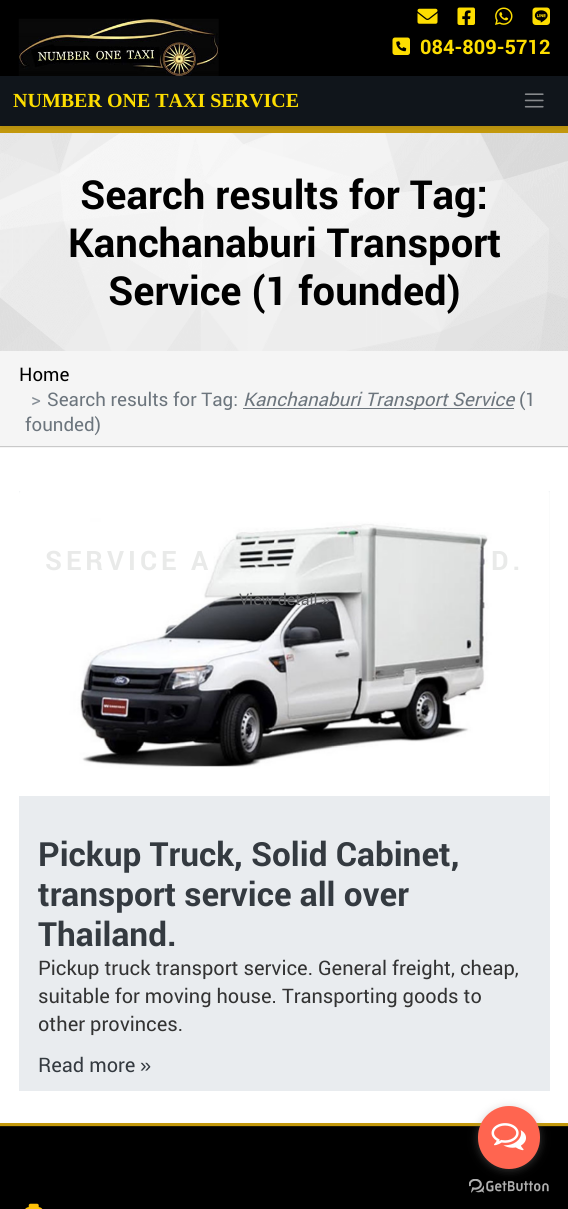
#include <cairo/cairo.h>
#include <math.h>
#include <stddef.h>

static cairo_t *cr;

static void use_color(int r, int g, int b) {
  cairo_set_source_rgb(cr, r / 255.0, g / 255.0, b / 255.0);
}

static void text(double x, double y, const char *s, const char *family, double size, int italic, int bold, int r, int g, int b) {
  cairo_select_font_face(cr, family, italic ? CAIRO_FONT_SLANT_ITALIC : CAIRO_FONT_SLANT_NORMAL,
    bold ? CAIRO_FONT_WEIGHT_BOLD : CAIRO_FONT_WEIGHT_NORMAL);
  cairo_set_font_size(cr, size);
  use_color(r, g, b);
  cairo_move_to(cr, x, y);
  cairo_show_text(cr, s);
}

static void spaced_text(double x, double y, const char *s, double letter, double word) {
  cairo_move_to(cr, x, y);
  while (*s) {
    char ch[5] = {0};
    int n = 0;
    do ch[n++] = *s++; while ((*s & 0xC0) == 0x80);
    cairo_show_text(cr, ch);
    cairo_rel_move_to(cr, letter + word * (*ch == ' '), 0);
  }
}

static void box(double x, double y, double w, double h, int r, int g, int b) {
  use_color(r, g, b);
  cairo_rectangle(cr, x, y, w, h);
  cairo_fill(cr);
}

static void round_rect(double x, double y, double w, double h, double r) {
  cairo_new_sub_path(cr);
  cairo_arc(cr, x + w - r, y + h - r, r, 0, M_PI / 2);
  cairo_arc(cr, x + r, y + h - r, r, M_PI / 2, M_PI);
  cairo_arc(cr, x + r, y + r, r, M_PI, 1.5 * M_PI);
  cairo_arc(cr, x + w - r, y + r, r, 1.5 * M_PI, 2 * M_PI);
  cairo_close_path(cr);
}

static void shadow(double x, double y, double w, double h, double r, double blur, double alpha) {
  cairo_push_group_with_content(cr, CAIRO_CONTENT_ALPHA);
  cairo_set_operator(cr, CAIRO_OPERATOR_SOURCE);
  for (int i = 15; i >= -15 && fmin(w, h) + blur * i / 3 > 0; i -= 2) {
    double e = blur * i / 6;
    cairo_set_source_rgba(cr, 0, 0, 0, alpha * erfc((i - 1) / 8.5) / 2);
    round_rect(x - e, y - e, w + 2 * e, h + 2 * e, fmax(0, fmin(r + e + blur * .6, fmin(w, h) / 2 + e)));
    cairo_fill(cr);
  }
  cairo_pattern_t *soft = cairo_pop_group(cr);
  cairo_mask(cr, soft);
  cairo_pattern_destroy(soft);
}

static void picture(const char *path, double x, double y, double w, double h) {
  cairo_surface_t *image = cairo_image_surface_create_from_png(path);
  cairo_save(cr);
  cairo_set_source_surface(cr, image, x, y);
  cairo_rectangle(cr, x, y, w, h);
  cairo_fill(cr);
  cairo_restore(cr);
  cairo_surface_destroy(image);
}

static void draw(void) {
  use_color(255, 255, 255);
  cairo_paint(cr);
  box(0, 0, 568, 76, 0, 0, 0);
  box(0, 126, 568, 7, 196, 153, 12);
  picture("img_01.png", 18, 18, 201, 58);
  picture("img_02.png", 417, 8, 21, 16);
  picture("img_03.png", 457, 7, 18, 18);
  picture("img_04.png", 495, 7, 18, 18);
  picture("img_05.png", 532, 7, 18, 18);
  picture("img_06.png", 392, 37, 18, 18);
  picture("img_08.png", 0, 133, 568, 218);
  use_color(51, 51, 51);
  shadow(0, 79, 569, 50, 0, 2, 0.1);
  box(0, 76, 568, 50, 16, 21, 27);
  picture("img_07.png", 524, 93, 20, 15);
  box(0, 351, 568, 97, 245, 245, 245);
  box(0, 446, 568, 1, 201, 201, 201);
  box(243, 408, 271, 1, 108, 117, 125);
  box(19, 491, 531, 600, 233, 236, 239);
  picture("img_09.png", 19, 491, 531, 305);
  box(0, 1127, 568, 82, 0, 0, 0);
  picture("img_11.png", 469, 1179, 80, 14);
  box(0, 1123, 568, 3, 196, 153, 12);
  box(0, 1126, 568, 1, 29, 23, 2);
  use_color(136, 136, 136);
  shadow(478, 1108, 62, 62, 31, 4.5, 0.4);
  use_color(255, 101, 80);
  round_rect(478, 1106, 62, 63, 31);
  cairo_fill(cr);
  picture("img_10.png", 491, 1123, 35, 28);
  picture("img_12.png", 25, 1203, 18, 6);
  text(420, 54, "084-809-5712", "Roboto", 20, 0, 1, 253, 221, 0);
  text(13, 107, "NUMBER ONE TAXI SERVICE", "Liberation Serif", 20, 0, 1, 253, 221, 0);
  text(80, 209, "Search results for Tag:", "Roboto", 40, 0, 1, 0, 0, 0);
  text(68, 257, "Kanchanaburi Transport", "Roboto", 40, 0, 1, 0, 0, 0);
  text(108, 305, "Service (1 founded)", "Roboto", 40, 0, 1, 0, 0, 0);
  text(19, 381, "Home", "Roboto", 18.75, 0, 0, 0, 0, 0);
  text(31, 406, ">", "Roboto", 18.75, 0, 0, 134, 142, 150);
  text(47, 406, "Search results for Tag:", "Roboto", 18.75, 0, 0, 108, 117, 125);
  text(243, 406, "Kanchanaburi Transport Service", "Roboto", 18.75, 1, 0, 108, 117, 125);
  text(519, 406, "(1", "Roboto", 18.75, 0, 0, 108, 117, 125);
  text(25, 431, "founded)", "Roboto", 18.75, 0, 0, 108, 117, 125);
  cairo_select_font_face(cr, "Roboto", CAIRO_FONT_SLANT_NORMAL, CAIRO_FONT_WEIGHT_BOLD);
  cairo_set_font_size(cr, 26.75);
  use_color(233, 234, 233);
  spaced_text(45, 570, "SERVICE A", 4, 0);
  spaced_text(491, 570, "D.", 4, 0);
  text(239, 605, "View detail", "Roboto", 16, 0, 0, 98, 99, 101);
  text(321, 605, "»", "Liberation Sans", 16, 0, 0, 134, 135, 137);
  text(38, 866, "Pickup Truck, Solid Cabinet,", "Roboto", 33.3, 0, 1, 52, 58, 64);
  text(38, 906, "transport service all over", "Roboto", 33.3, 0, 1, 52, 58, 64);
  text(38, 946, "Thailand.", "Roboto", 33.3, 0, 1, 52, 58, 64);
  text(38, 975, "Pickup truck transport service. General freight, cheap,", "Roboto", 20, 0, 0, 51, 51, 51);
  text(38, 1003, "suitable for moving house. Transporting goods to", "Roboto", 20, 0, 0, 51, 51, 51);
  text(38, 1031, "other provinces.", "Roboto", 20, 0, 0, 51, 51, 51);
  text(38, 1072, "Read more", "Roboto", 20, 0, 0, 52, 58, 64);
  text(140, 1072, "»", "Liberation Sans", 20, 0, 0, 52, 58, 64);
}

int main(void) {
  cairo_surface_t *surface = cairo_image_surface_create(CAIRO_FORMAT_RGB24, 568, 1209);
  cr = cairo_create(surface);
  cairo_font_options_t *options = cairo_font_options_create();
  cairo_font_options_set_hint_metrics(options, CAIRO_HINT_METRICS_OFF);
  cairo_font_options_set_hint_style(options, CAIRO_HINT_STYLE_NONE);
  cairo_set_font_options(cr, options);
  cairo_set_miter_limit(cr, 4);
  draw();
  cairo_surface_write_to_png(surface, "out.png");
  cairo_font_options_destroy(options);
  cairo_destroy(cr);
  cairo_surface_destroy(surface);
  return 0;
}
